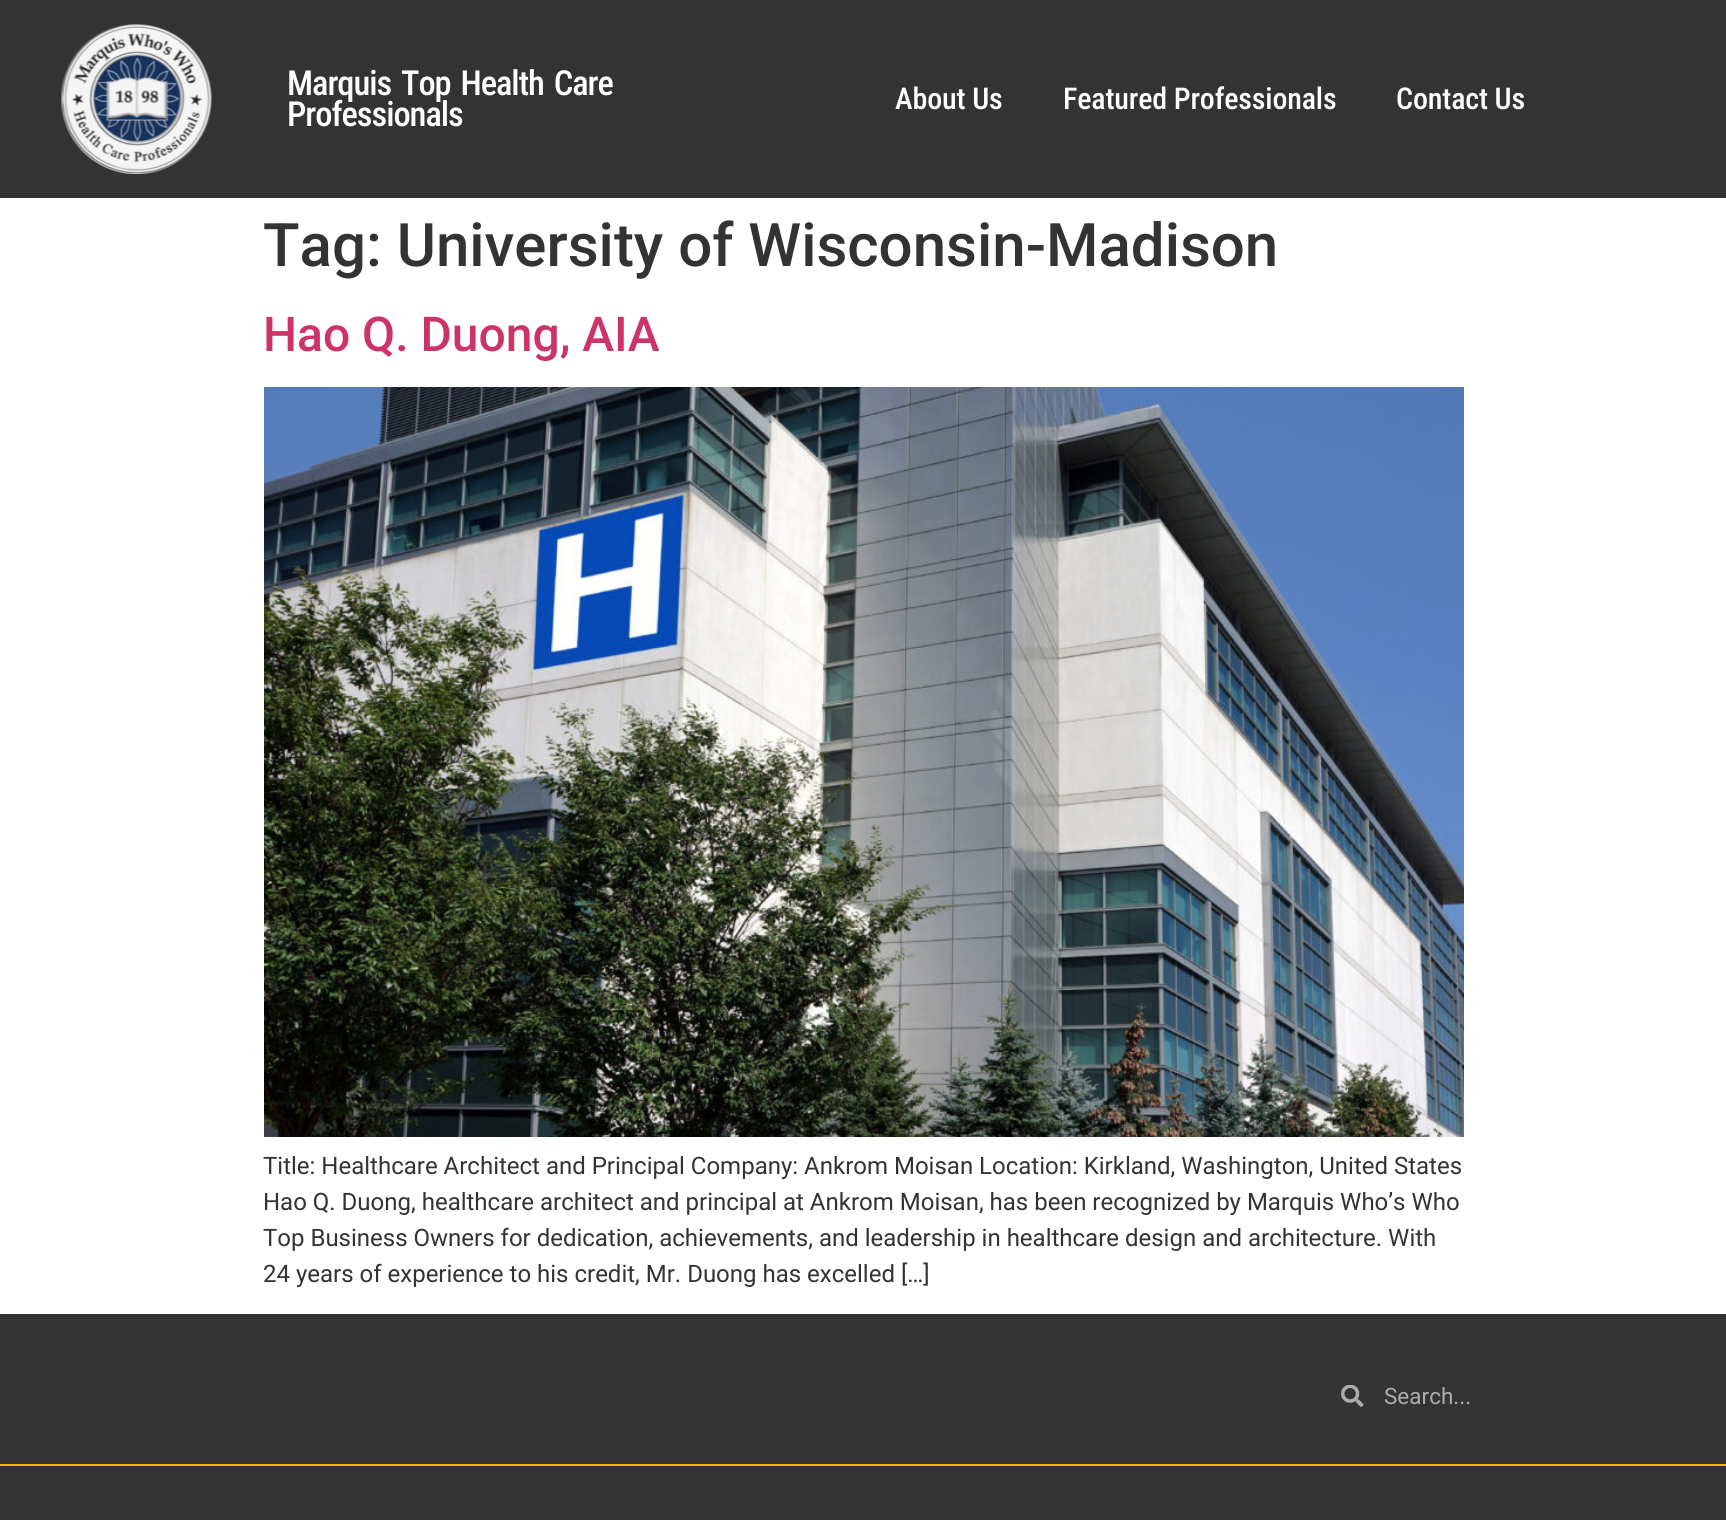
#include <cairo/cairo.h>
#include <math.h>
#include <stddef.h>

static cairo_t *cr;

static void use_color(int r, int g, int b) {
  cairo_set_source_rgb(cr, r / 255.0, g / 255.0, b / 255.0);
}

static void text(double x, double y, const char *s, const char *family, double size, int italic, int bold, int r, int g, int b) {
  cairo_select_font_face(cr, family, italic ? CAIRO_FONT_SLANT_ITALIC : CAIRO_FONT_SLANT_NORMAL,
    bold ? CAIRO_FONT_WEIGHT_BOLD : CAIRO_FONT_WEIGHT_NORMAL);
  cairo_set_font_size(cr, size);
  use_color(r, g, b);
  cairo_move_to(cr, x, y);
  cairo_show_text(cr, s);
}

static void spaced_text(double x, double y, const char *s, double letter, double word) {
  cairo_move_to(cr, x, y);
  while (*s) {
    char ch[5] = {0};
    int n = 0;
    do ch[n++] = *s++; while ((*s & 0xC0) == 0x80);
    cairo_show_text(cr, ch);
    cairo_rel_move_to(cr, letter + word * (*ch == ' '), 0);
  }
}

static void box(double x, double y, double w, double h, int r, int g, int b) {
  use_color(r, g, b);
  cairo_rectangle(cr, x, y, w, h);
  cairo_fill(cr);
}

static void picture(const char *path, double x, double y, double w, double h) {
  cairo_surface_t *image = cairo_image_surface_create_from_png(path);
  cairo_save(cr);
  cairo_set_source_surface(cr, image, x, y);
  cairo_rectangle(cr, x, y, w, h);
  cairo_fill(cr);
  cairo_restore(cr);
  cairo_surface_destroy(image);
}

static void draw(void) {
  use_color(255, 255, 255);
  cairo_paint(cr);
  box(0, 0, 1726, 198, 51, 51, 51);
  picture("img_01.png", 61, 24, 151, 150);
  picture("img_02.png", 264, 387, 1200, 750);
  box(0, 1314, 1726, 206, 51, 51, 51);
  picture("img_03.png", 1341, 1385, 23, 22);
  box(0, 1464, 1726, 2, 235, 188, 0);
  cairo_select_font_face(cr, "Roboto Condensed Medium", CAIRO_FONT_SLANT_NORMAL, CAIRO_FONT_WEIGHT_NORMAL);
  cairo_set_font_size(cr, 34.5);
  use_color(255, 255, 255);
  spaced_text(287, 95, "Marquis Top Health Care", -1.05, 3);
  spaced_text(287, 126, "Professionals", -1.05, 0);
  cairo_set_font_size(cr, 30);
  spaced_text(895, 109, "About Us", -0.15, 0);
  spaced_text(1063, 109, "Featured Professionals", -0.15, 0);
  spaced_text(1396, 109, "Contact Us", -0.15, 0);
  text(263, 266, "Tag: University of Wisconsin-Madison", "Roboto Medium", 60, 0, 0, 51, 51, 51);
  text(263, 351, "Hao Q. Duong, AIA", "Roboto Medium", 48, 0, 0, 204, 51, 102);
  text(263, 1174, "Title: Healthcare Architect and Principal Company: Ankrom Moisan Location: Kirkland, Washington, United States", "Roboto", 24, 0, 0, 51, 51, 51);
  text(263, 1210, "Hao Q. Duong, healthcare architect and principal at Ankrom Moisan, has been recognized by Marquis Who’s Who", "Roboto", 24, 0, 0, 51, 51, 51);
  text(263, 1246, "Top Business Owners for dedication, achievements, and leadership in healthcare design and architecture. With", "Roboto", 24, 0, 0, 51, 51, 51);
  text(263, 1282, "24 years of experience to his credit, Mr. Duong has excelled […]", "Roboto", 24, 0, 0, 51, 51, 51);
  text(1384, 1404, "Search...", "Roboto", 22.5, 0, 0, 173, 173, 173);
}

int main(void) {
  cairo_surface_t *surface = cairo_image_surface_create(CAIRO_FORMAT_RGB24, 1726, 1520);
  cr = cairo_create(surface);
  cairo_font_options_t *options = cairo_font_options_create();
  cairo_font_options_set_hint_metrics(options, CAIRO_HINT_METRICS_OFF);
  cairo_font_options_set_hint_style(options, CAIRO_HINT_STYLE_NONE);
  cairo_set_font_options(cr, options);
  cairo_set_miter_limit(cr, 4);
  draw();
  cairo_surface_write_to_png(surface, "out.png");
  cairo_font_options_destroy(options);
  cairo_destroy(cr);
  cairo_surface_destroy(surface);
  return 0;
}
